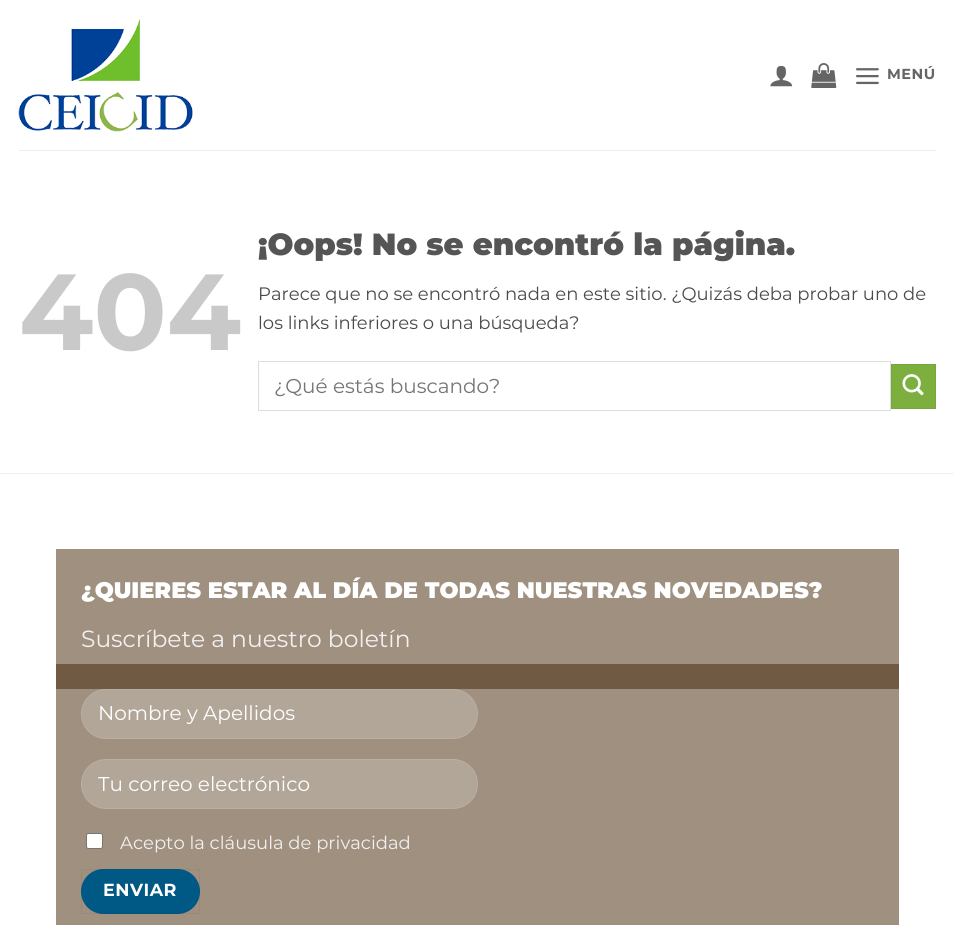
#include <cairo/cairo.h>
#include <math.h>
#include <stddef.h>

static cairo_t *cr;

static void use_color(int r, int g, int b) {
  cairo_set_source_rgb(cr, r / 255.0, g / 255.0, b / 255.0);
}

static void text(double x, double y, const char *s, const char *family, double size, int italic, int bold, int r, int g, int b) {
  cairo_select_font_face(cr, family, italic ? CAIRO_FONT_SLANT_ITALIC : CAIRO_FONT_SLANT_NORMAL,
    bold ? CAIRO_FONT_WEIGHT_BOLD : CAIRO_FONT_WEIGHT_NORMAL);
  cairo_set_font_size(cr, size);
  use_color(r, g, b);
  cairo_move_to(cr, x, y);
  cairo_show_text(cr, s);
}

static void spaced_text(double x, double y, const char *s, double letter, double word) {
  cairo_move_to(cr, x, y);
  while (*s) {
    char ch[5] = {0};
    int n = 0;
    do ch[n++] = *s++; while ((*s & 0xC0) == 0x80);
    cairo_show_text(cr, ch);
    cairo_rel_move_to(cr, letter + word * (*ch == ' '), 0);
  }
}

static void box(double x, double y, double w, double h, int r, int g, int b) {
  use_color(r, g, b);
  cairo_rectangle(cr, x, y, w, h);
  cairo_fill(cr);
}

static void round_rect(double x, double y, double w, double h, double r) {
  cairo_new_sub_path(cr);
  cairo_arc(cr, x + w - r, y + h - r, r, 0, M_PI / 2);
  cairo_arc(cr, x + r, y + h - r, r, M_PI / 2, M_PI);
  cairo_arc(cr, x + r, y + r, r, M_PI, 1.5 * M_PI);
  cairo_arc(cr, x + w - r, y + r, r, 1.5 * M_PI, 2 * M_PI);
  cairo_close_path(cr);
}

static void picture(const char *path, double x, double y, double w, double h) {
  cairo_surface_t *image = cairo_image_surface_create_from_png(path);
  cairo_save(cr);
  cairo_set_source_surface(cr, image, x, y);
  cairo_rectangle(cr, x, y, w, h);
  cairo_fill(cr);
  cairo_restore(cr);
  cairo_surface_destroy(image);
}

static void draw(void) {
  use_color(255, 255, 255);
  cairo_paint(cr);
  box(56, 689, 843, 236, 159, 144, 128);
  picture("img_01.png", 18, 19, 175, 113);
  picture("img_02.png", 770, 65, 23, 22);
  picture("img_03.png", 811, 63, 26, 25);
  picture("img_04.png", 856, 68, 23, 17);
  box(19, 150, 917, 1, 237, 237, 237);
  cairo_rectangle(cr, 258.5, 361.5, 632, 49);
  use_color(221, 221, 221);
  cairo_set_line_width(cr, 1);
  cairo_stroke(cr);
  use_color(125, 175, 63);
  cairo_rectangle(cr, 891.5, 364.5, 44, 44);
  cairo_fill_preserve(cr);
  use_color(119, 166, 60);
  cairo_stroke(cr);
  picture("img_05.png", 902, 374, 22, 21);
  box(0, 473, 954, 1, 242, 242, 242);
  box(56, 549, 843, 115, 159, 144, 128);
  box(56, 664, 843, 25, 113, 90, 67);
  use_color(178, 166, 153);
  round_rect(81, 689, 397, 50, 25);
  cairo_fill(cr);
  round_rect(81.5, 689.5, 396, 49, 24.5);
  cairo_set_source_rgba(cr, 1, 1, 1, 0.09);
  cairo_stroke(cr);
  use_color(178, 166, 153);
  round_rect(81, 759, 397, 50, 25);
  cairo_fill(cr);
  round_rect(81.5, 759.5, 396, 49, 24.5);
  cairo_set_source_rgba(cr, 1, 1, 1, 0.09);
  cairo_stroke(cr);
  use_color(255, 255, 255);
  round_rect(86.5, 833.5, 16, 15, 2);
  cairo_fill_preserve(cr);
  use_color(118, 118, 118);
  cairo_stroke(cr);
  use_color(0, 88, 132);
  round_rect(81, 869, 119, 45, 22.5);
  cairo_fill(cr);
  cairo_rectangle(cr, 81.5, 869.5, 118, 44);
  cairo_set_source_rgba(cr, 0, 0, 0, 0.05);
  cairo_stroke(cr);
  cairo_select_font_face(cr, "Montserrat", CAIRO_FONT_SLANT_NORMAL, CAIRO_FONT_WEIGHT_BOLD);
  cairo_set_font_size(cr, 14.5);
  use_color(101, 101, 101);
  spaced_text(887, 79, "MENÚ", 0.5, 0);
  text(19, 350, "404", "Montserrat", 108, 0, 1, 201, 201, 201);
  text(258, 255, "¡Oops! No se encontró la página.", "Montserrat Black", 30.6, 0, 0, 85, 85, 85);
  text(258, 300, "Parece que no se encontró nada en este sitio. ¿Quizás deba probar uno de", "Montserrat", 18, 0, 0, 74, 74, 74);
  text(258, 329, "los links inferiores o una búsqueda?", "Montserrat", 18, 0, 0, 74, 74, 74);
  text(274, 393, "¿Qué estás buscando?", "Montserrat", 20, 0, 0, 117, 117, 117);
  text(81, 598, "¿QUIERES ESTAR AL DÍA DE TODAS NUESTRAS NOVEDADES?", "Montserrat Black", 22.5, 0, 0, 255, 255, 255);
  text(81, 647, "Suscríbete a nuestro boletín", "Montserrat", 23.4, 0, 0, 241, 241, 241);
  text(98, 720, "Nombre y Apellidos", "Montserrat", 20, 0, 0, 255, 255, 255);
  text(98, 791, "Tu correo electrónico", "Montserrat", 20, 0, 0, 255, 255, 255);
  text(120, 849, "Acepto la cláusula de privacidad", "Montserrat", 18, 0, 0, 241, 241, 241);
  cairo_select_font_face(cr, "Montserrat", CAIRO_FONT_SLANT_NORMAL, CAIRO_FONT_WEIGHT_BOLD);
  cairo_set_font_size(cr, 17.5);
  use_color(255, 255, 255);
  spaced_text(103, 896, "ENVIAR", 0.5, 0);
}

int main(void) {
  cairo_surface_t *surface = cairo_image_surface_create(CAIRO_FORMAT_RGB24, 954, 925);
  cr = cairo_create(surface);
  cairo_font_options_t *options = cairo_font_options_create();
  cairo_font_options_set_hint_metrics(options, CAIRO_HINT_METRICS_OFF);
  cairo_font_options_set_hint_style(options, CAIRO_HINT_STYLE_NONE);
  cairo_set_font_options(cr, options);
  cairo_set_miter_limit(cr, 4);
  draw();
  cairo_surface_write_to_png(surface, "out.png");
  cairo_font_options_destroy(options);
  cairo_destroy(cr);
  cairo_surface_destroy(surface);
  return 0;
}
